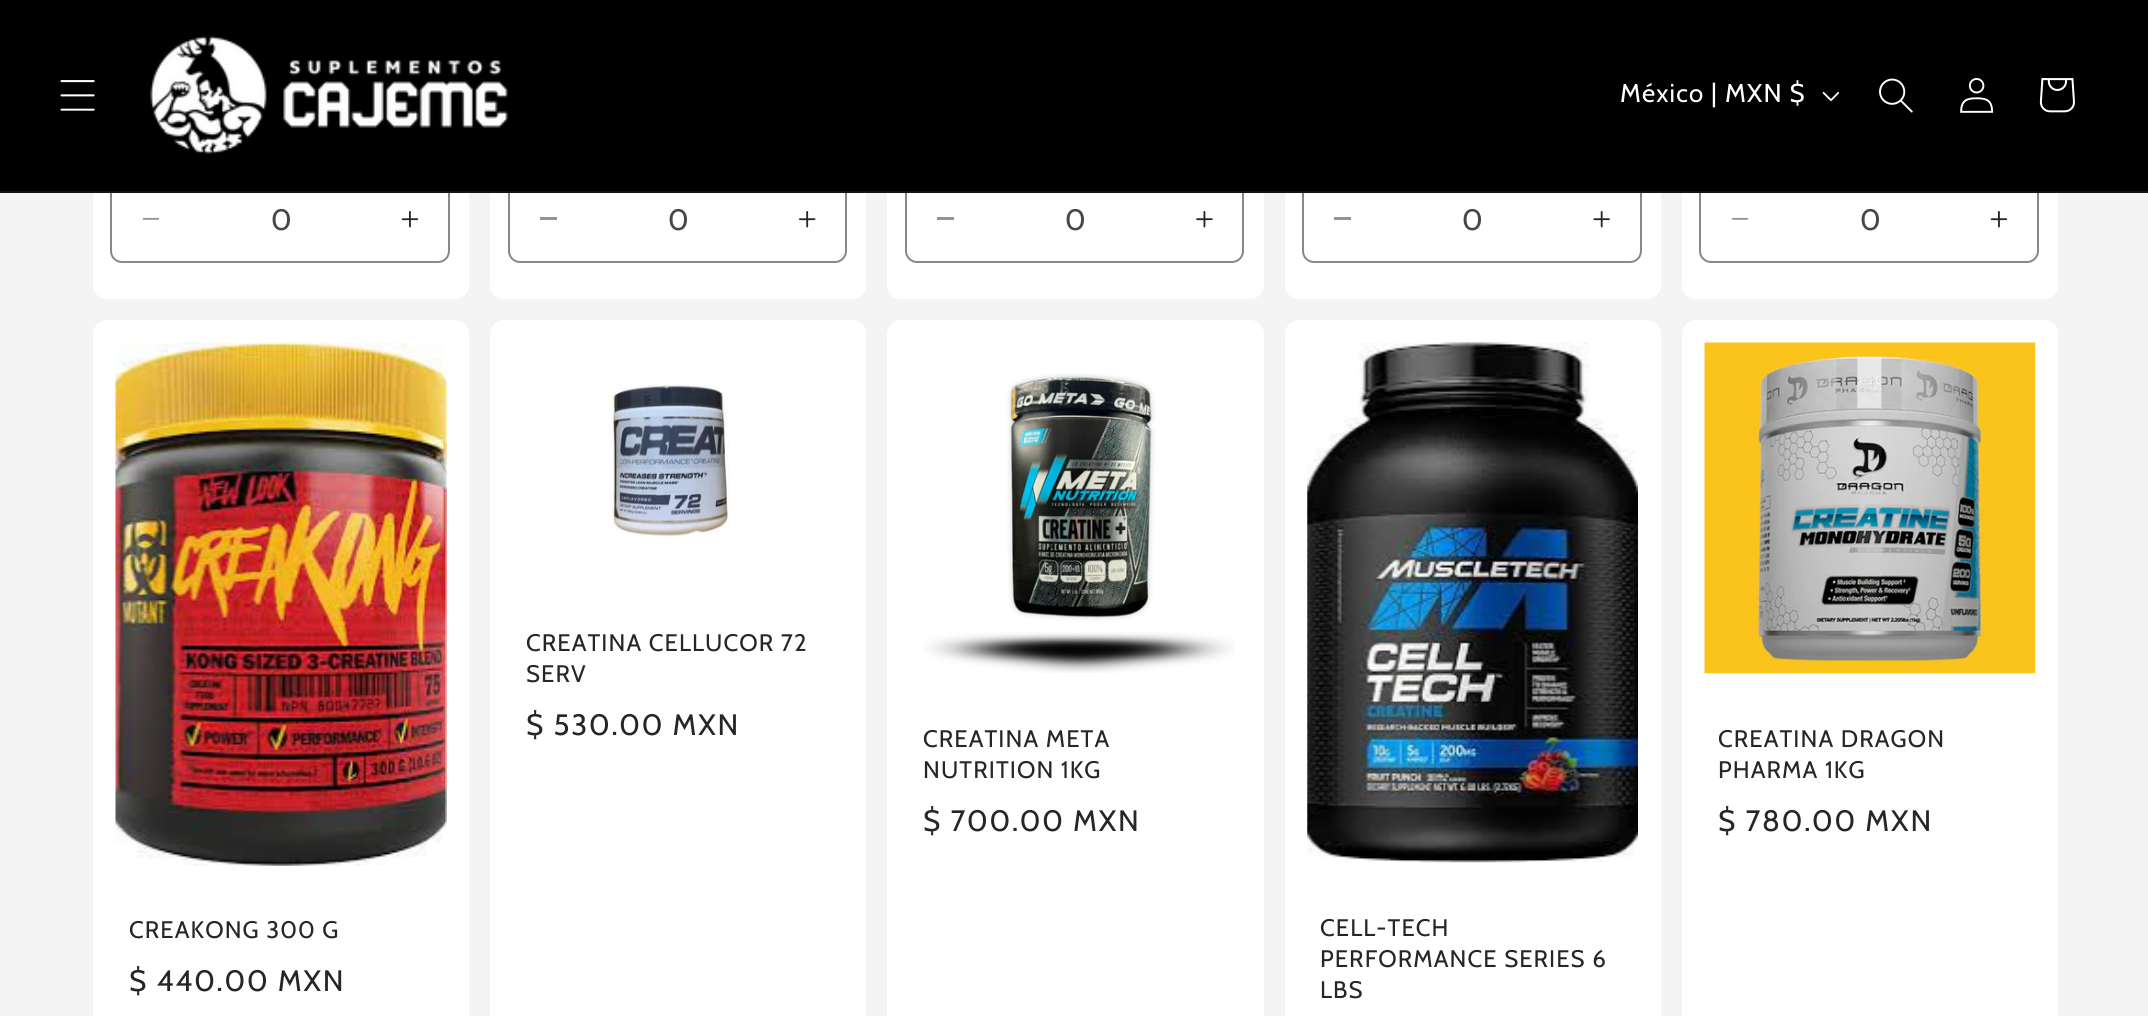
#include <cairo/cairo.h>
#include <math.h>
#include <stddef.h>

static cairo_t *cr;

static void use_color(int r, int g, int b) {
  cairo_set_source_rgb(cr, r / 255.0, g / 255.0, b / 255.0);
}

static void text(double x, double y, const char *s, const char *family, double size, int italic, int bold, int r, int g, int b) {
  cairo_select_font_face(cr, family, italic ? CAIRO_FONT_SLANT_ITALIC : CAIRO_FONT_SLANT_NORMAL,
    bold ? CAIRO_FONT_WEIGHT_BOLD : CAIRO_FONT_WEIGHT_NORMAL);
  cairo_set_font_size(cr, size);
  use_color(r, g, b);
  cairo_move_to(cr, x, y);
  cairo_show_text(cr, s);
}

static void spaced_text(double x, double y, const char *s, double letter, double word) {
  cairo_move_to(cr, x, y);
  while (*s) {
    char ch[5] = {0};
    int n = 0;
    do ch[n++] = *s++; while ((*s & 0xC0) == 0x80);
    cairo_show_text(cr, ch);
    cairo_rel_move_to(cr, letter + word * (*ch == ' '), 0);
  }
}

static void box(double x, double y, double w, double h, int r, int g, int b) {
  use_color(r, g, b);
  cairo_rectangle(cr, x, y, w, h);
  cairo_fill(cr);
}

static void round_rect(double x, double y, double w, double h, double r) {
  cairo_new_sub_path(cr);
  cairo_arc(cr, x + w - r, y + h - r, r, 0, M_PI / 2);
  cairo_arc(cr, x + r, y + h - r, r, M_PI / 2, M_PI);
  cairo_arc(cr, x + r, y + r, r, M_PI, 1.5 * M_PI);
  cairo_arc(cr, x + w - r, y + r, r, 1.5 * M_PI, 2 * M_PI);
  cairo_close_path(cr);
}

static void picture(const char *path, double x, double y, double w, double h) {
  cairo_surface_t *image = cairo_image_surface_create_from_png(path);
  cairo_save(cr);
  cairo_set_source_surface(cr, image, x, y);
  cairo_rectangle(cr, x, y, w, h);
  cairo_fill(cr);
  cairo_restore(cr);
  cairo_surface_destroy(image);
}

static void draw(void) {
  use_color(244, 244, 244);
  cairo_paint(cr);
  use_color(255, 255, 255);
  round_rect(93, -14, 376, 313, 14);
  cairo_fill(cr);
  picture("img_07.png", 142, 217, 18, 3);
  picture("img_08.png", 401, 211, 18, 17);
  round_rect(111, 178, 338, 84, 11);
  use_color(136, 136, 136);
  cairo_stroke(cr);
  use_color(255, 255, 255);
  round_rect(490, -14, 376, 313, 14);
  cairo_fill(cr);
  box(540, 217, 17, 3, 147, 147, 147);
  picture("img_09.png", 799, 211, 17, 17);
  round_rect(509, 178, 337, 84, 11);
  use_color(136, 136, 136);
  cairo_stroke(cr);
  use_color(255, 255, 255);
  round_rect(887, -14, 377, 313, 14);
  cairo_fill(cr);
  box(937, 217, 17, 3, 147, 147, 147);
  picture("img_10.png", 1196, 211, 17, 17);
  round_rect(906, 178, 337, 84, 11);
  use_color(136, 136, 136);
  cairo_stroke(cr);
  use_color(255, 255, 255);
  round_rect(1285, -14, 376, 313, 14);
  cairo_fill(cr);
  box(1334, 217, 17, 3, 147, 147, 147);
  picture("img_11.png", 1593, 211, 17, 17);
  round_rect(1303, 178, 338, 84, 11);
  use_color(136, 136, 136);
  cairo_stroke(cr);
  use_color(255, 255, 255);
  round_rect(1682, -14, 376, 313, 14);
  cairo_fill(cr);
  picture("img_07.png", 1731, 217, 18, 3);
  picture("img_08.png", 1990, 211, 18, 17);
  round_rect(1700, 178, 338, 84, 11);
  use_color(136, 136, 136);
  cairo_stroke(cr);
  box(0, 0, 2148, 191, 0, 0, 0);
  box(0, 191, 2148, 2, 20, 20, 20);
  picture("img_01.png", 60, 80, 35, 31);
  picture("img_02.png", 150, 36, 358, 118);
  picture("img_03.png", 1822, 92, 18, 9);
  picture("img_04.png", 1879, 78, 34, 35);
  picture("img_05.png", 1960, 78, 34, 35);
  picture("img_06.png", 2039, 78, 36, 35);
  use_color(255, 255, 255);
  round_rect(490, 320, 376, 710, 14);
  cairo_fill(cr);
  picture("img_12.png", 608, 383, 122, 154);
  round_rect(887, 320, 377, 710, 14);
  cairo_fill(cr);
  picture("img_13.png", 924, 373, 311, 300);
  round_rect(1682, 320, 376, 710, 14);
  cairo_fill(cr);
  picture("img_14.png", 1704, 342, 332, 332);
  round_rect(93, 320, 376, 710, 14);
  cairo_fill(cr);
  picture("img_15.png", 115, 342, 332, 524);
  round_rect(1285, 320, 376, 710, 14);
  cairo_fill(cr);
  picture("img_16.png", 1307, 342, 331, 521);
  cairo_select_font_face(cr, "Cabin", CAIRO_FONT_SLANT_NORMAL, CAIRO_FONT_WEIGHT_NORMAL);
  cairo_set_font_size(cr, 25.75);
  spaced_text(1620, 102, "México | MXN $", 1.1, 0);
  text(271, 230, "0", "Cabin", 29.5, 0, 0, 71, 71, 71);
  text(668, 230, "0", "Cabin", 29.5, 0, 0, 71, 71, 71);
  text(1065, 230, "0", "Cabin", 29.5, 0, 0, 71, 71, 71);
  text(1462, 230, "0", "Cabin", 29.5, 0, 0, 71, 71, 71);
  text(1860, 230, "0", "Cabin", 29.5, 0, 0, 71, 71, 71);
  cairo_set_font_size(cr, 23.9);
  use_color(38, 38, 38);
  spaced_text(526, 651, "CREATINA CELLUCOR 72", 1.1, 0);
  spaced_text(526, 682, "SERV", 1.1, 0);
  cairo_set_font_size(cr, 29.5);
  spaced_text(526, 735, "$ 530.00 MXN", 1.8, 0);
  cairo_set_font_size(cr, 23.9);
  spaced_text(923, 747, "CREATINA META", 1.1, 0);
  spaced_text(923, 778, "NUTRITION 1KG", 1.1, 0);
  cairo_set_font_size(cr, 29.5);
  spaced_text(923, 831, "$ 700.00 MXN", 1.8, 0);
  cairo_set_font_size(cr, 23.9);
  spaced_text(1718, 747, "CREATINA DRAGON", 1.1, 0);
  spaced_text(1718, 778, "PHARMA 1KG", 1.1, 0);
  cairo_set_font_size(cr, 29.5);
  spaced_text(1718, 831, "$ 780.00 MXN", 1.8, 0);
  cairo_set_font_size(cr, 23.9);
  spaced_text(129, 938, "CREAKONG 300 G", 1.1, 0);
  cairo_set_font_size(cr, 29.5);
  spaced_text(129, 991, "$ 440.00 MXN", 1.8, 0);
  cairo_set_font_size(cr, 23.9);
  spaced_text(1320, 936, "CELL-TECH", 1.1, 0);
  spaced_text(1320, 967, "PERFORMANCE SERIES 6", 1.1, 0);
  spaced_text(1320, 998, "LBS", 1.1, 0);
}

int main(void) {
  cairo_surface_t *surface = cairo_image_surface_create(CAIRO_FORMAT_RGB24, 2148, 1016);
  cr = cairo_create(surface);
  cairo_font_options_t *options = cairo_font_options_create();
  cairo_font_options_set_hint_metrics(options, CAIRO_HINT_METRICS_OFF);
  cairo_font_options_set_hint_style(options, CAIRO_HINT_STYLE_NONE);
  cairo_set_font_options(cr, options);
  cairo_set_miter_limit(cr, 4);
  draw();
  cairo_surface_write_to_png(surface, "out.png");
  cairo_font_options_destroy(options);
  cairo_destroy(cr);
  cairo_surface_destroy(surface);
  return 0;
}
